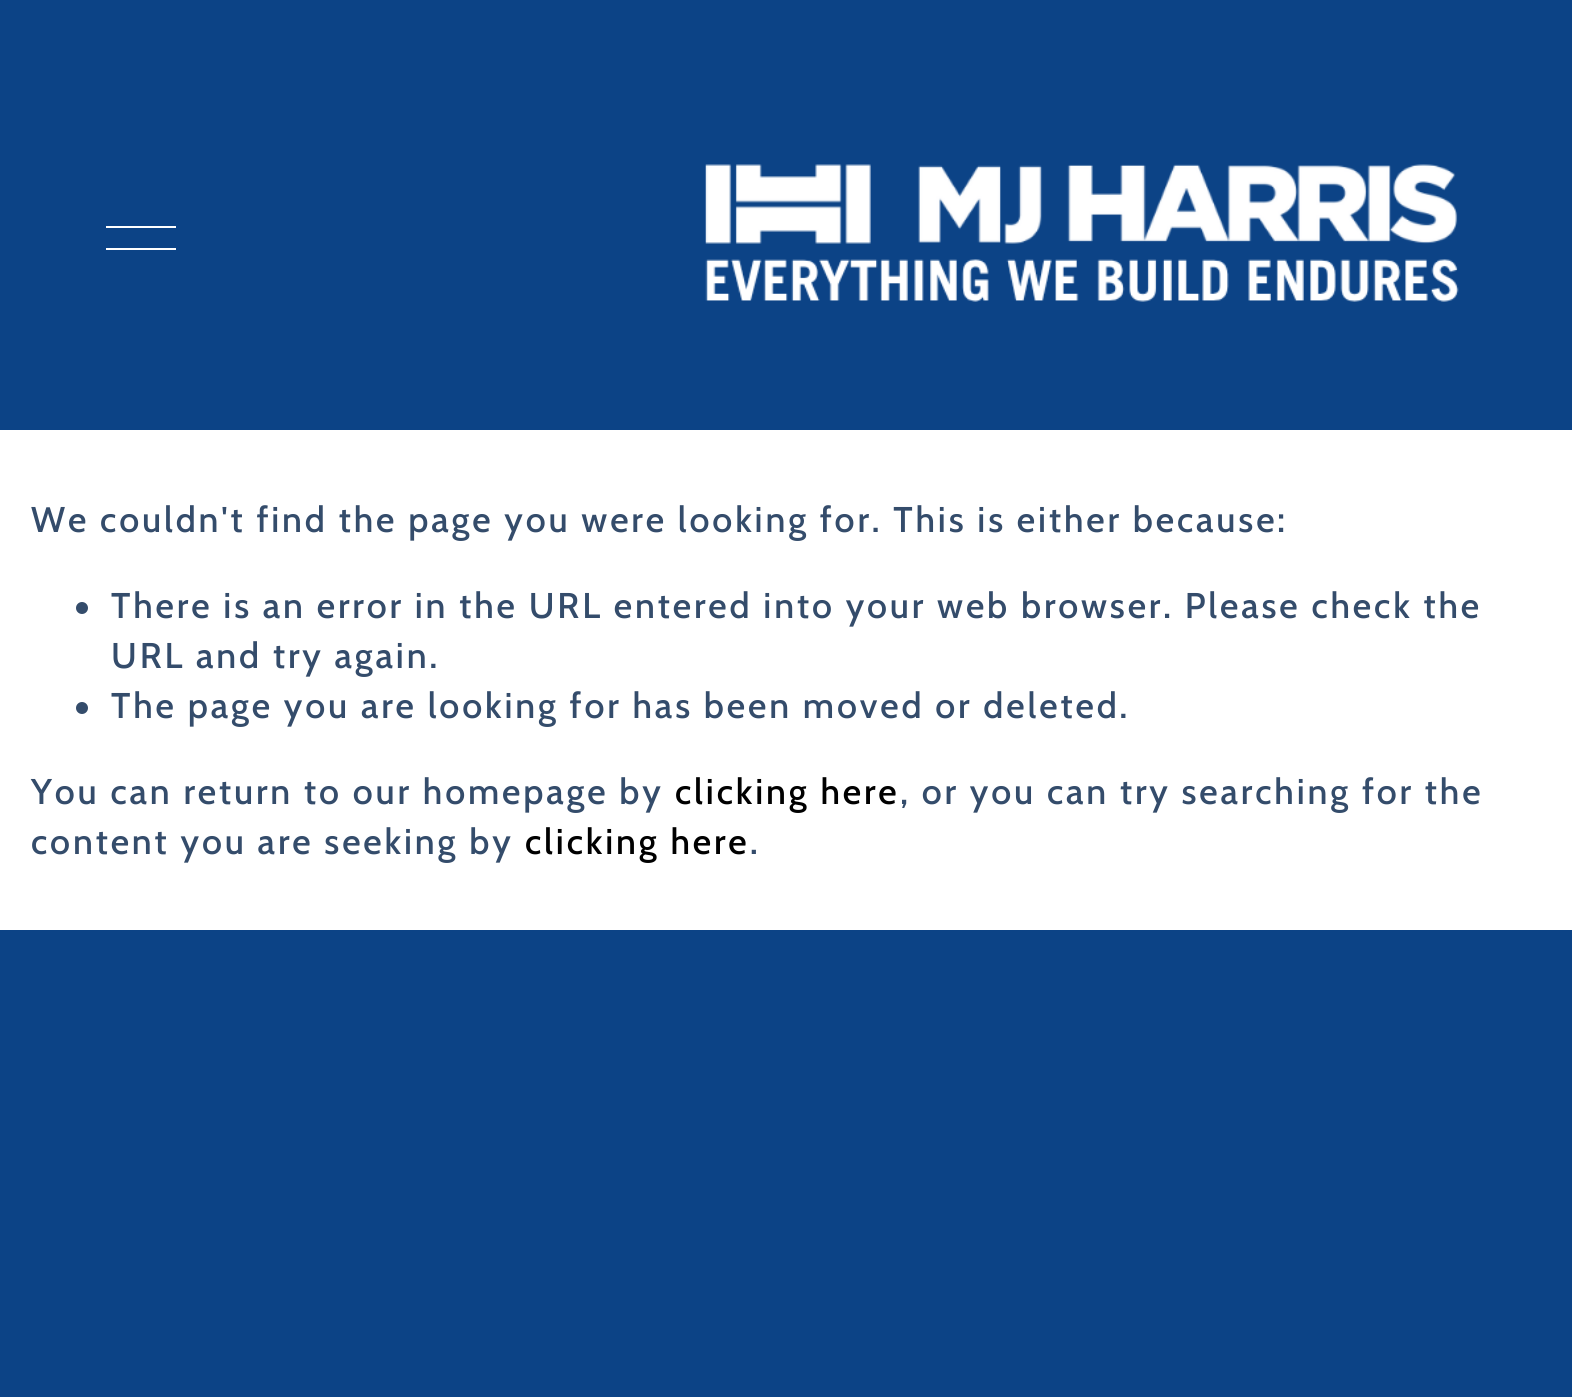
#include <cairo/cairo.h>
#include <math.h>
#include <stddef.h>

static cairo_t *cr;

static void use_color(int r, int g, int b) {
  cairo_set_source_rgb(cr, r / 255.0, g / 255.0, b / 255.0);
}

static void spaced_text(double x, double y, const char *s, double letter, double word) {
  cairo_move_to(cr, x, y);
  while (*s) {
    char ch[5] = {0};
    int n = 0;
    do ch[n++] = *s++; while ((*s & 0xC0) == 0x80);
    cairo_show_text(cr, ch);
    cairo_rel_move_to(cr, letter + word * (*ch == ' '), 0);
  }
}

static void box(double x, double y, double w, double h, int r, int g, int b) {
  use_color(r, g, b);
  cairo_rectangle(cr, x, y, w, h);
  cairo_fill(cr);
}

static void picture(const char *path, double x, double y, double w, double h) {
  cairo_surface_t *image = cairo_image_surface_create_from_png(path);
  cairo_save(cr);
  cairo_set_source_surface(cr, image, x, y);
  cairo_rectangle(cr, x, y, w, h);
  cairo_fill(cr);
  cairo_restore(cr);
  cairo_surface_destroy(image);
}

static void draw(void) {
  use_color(255, 255, 255);
  cairo_paint(cr);
  box(0, 0, 1572, 430, 12, 67, 134);
  box(106, 226, 70, 2, 255, 255, 255);
  box(106, 248, 70, 2, 255, 255, 255);
  picture("img_01.png", 705, 164, 754, 138);
  use_color(52, 76, 107);
  cairo_arc(cr, 82, 608, 6, 0, 2 * M_PI);
  cairo_fill(cr);
  cairo_arc(cr, 82, 708, 6, 0, 2 * M_PI);
  cairo_fill(cr);
  box(0, 930, 1572, 467, 12, 67, 134);
  cairo_select_font_face(cr, "Cabin Medium", CAIRO_FONT_SLANT_NORMAL, CAIRO_FONT_WEIGHT_NORMAL);
  cairo_set_font_size(cr, 35.75);
  use_color(52, 76, 107);
  spaced_text(31, 532, "We couldn't find the page you were looking for. This is either because:", 2.85, 0);
  spaced_text(111, 618, "There is an error in the URL entered into your web browser. Please check the", 2.85, 0);
  spaced_text(111, 668, "URL and try again.", 2.85, 0);
  spaced_text(111, 718, "The page you are looking for has been moved or deleted.", 2.85, 0);
  spaced_text(31, 804, "You can return to our homepage by", 2.85, 0);
  use_color(0, 0, 0);
  spaced_text(675, 804, "clicking here", 2.85, 0);
  use_color(52, 76, 107);
  spaced_text(900, 804, ", or you can try searching for the", 2.85, 0);
  spaced_text(31, 854, "content you are seeking by", 2.85, 0);
  use_color(0, 0, 0);
  spaced_text(525, 854, "clicking here", 2.85, 0);
  use_color(52, 76, 107);
  spaced_text(750, 854, ".", 2.85, 0);
}

int main(void) {
  cairo_surface_t *surface = cairo_image_surface_create(CAIRO_FORMAT_RGB24, 1572, 1397);
  cr = cairo_create(surface);
  cairo_font_options_t *options = cairo_font_options_create();
  cairo_font_options_set_hint_metrics(options, CAIRO_HINT_METRICS_OFF);
  cairo_font_options_set_hint_style(options, CAIRO_HINT_STYLE_NONE);
  cairo_set_font_options(cr, options);
  cairo_set_miter_limit(cr, 4);
  draw();
  cairo_surface_write_to_png(surface, "out.png");
  cairo_font_options_destroy(options);
  cairo_destroy(cr);
  cairo_surface_destroy(surface);
  return 0;
}
